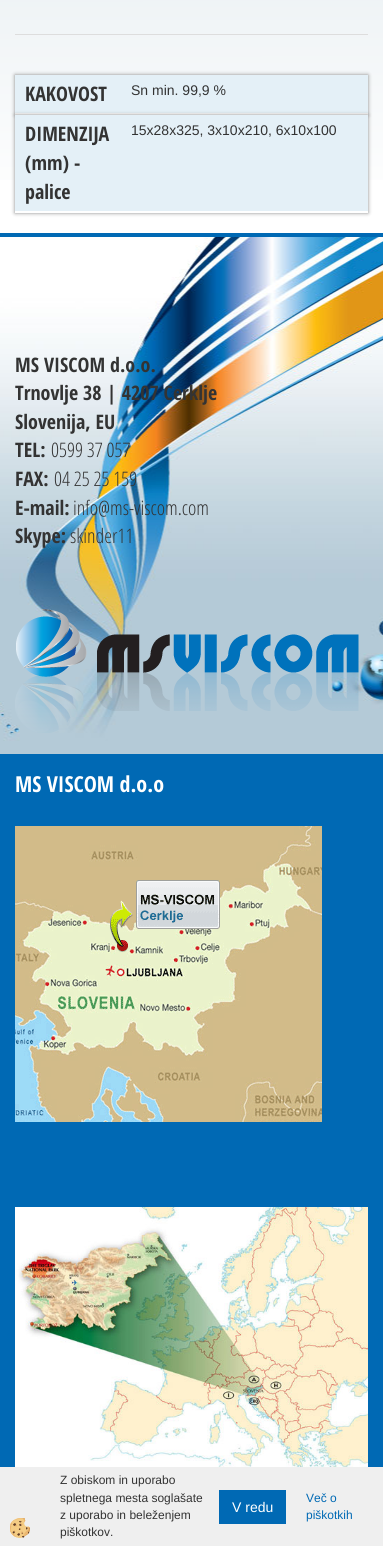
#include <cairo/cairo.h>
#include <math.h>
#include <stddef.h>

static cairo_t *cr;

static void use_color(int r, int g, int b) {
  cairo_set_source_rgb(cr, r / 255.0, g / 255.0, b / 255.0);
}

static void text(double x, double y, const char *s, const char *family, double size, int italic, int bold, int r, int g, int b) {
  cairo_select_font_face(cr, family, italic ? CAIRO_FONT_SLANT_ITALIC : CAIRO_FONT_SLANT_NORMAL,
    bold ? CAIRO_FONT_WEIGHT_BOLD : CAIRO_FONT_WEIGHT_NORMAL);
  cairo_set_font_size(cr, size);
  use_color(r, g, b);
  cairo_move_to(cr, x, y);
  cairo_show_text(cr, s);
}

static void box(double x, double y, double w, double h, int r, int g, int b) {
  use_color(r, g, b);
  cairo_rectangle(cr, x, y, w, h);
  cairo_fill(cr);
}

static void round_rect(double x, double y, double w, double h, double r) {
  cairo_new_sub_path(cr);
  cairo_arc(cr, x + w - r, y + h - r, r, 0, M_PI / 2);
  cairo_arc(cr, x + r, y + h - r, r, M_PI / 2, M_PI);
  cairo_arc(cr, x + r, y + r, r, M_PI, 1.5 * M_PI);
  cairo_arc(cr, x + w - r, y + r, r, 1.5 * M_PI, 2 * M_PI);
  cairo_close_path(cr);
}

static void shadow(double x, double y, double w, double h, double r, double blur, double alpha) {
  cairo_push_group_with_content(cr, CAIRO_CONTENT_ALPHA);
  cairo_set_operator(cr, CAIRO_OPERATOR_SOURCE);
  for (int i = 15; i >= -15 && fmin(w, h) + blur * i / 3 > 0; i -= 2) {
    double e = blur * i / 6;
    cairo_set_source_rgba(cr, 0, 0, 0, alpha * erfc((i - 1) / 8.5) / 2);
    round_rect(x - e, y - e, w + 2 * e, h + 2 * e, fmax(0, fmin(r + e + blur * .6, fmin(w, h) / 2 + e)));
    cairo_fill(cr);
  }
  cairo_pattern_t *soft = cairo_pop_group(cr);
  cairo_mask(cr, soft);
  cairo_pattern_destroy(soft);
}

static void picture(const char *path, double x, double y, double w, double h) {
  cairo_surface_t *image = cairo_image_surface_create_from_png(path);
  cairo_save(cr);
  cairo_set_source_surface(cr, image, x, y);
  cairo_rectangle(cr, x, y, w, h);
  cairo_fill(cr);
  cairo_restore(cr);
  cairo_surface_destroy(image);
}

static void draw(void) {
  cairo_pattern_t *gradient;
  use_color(255, 255, 255);
  cairo_paint(cr);
  gradient = cairo_pattern_create_linear(191, -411, 192, 213);
  cairo_pattern_add_color_stop_rgba(gradient, 0, 0.816, 0.867, 0.894, 1);
  cairo_pattern_add_color_stop_rgba(gradient, 1, 1, 1, 1, 1);
  cairo_set_source(cr, gradient);
  cairo_pattern_destroy(gradient);
  cairo_rectangle(cr, 0, 0, 383, 180);
  cairo_fill(cr);
  box(15, 34, 353, 1, 221, 221, 221);
  use_color(136, 136, 136);
  shadow(15, 75, 353, 40, 0, 2, 1);
  box(15, 75, 353, 38, 228, 240, 247);
  box(15, 113, 353, 2, 255, 255, 255);
  use_color(136, 136, 136);
  shadow(15, 115, 353, 98, 0, 2, 1);
  box(15, 115, 353, 96, 228, 240, 247);
  box(15, 211, 353, 2, 255, 255, 255);
  box(0, 233, 383, 1234, 0, 105, 180);
  picture("img_01.png", 0, 237, 383, 517);
  picture("img_02.png", 15, 609, 344, 124);
  picture("img_03.png", 15, 826, 307, 296);
  picture("img_04.png", 15, 1207, 353, 260);
  box(0, 1467, 383, 79, 239, 239, 239);
  picture("img_05.png", 10, 1518, 20, 20);
  box(219, 1490, 67, 34, 0, 105, 180);
  text(25, 101, "KAKOVOST", "Open Sans Condensed", 20, 0, 1, 51, 51, 51);
  text(131, 95, "Sn min. 99,9 %", "Liberation Sans", 14, 0, 0, 51, 51, 51);
  text(25, 141, "DIMENZIJA", "Open Sans Condensed", 20, 0, 1, 51, 51, 51);
  text(25, 170, "(mm) -", "Open Sans Condensed", 20, 0, 1, 51, 51, 51);
  text(25, 199, "palice", "Open Sans Condensed", 20, 0, 1, 51, 51, 51);
  text(131, 135, "15x28x325, 3x10x210, 6x10x100", "Liberation Sans", 14, 0, 0, 51, 51, 51);
  text(15, 372, "MS VISCOM d.o.o.", "Open Sans Condensed", 20, 0, 1, 51, 51, 51);
  text(15, 400, "Trnovlje 38 | 4207 Cerklje", "Open Sans Condensed", 20, 0, 1, 51, 51, 51);
  text(15, 429, "Slovenija, EU", "Open Sans Condensed", 20, 0, 1, 51, 51, 51);
  text(15, 457, "TEL:", "Open Sans Condensed", 20, 0, 1, 51, 51, 51);
  text(51, 457, "0599 37 057", "Open Sans Condensed Light", 20, 0, 0, 51, 51, 51);
  text(15, 486, "FAX:", "Open Sans Condensed", 20, 0, 1, 51, 51, 51);
  text(54, 486, "04 25 25 159", "Open Sans Condensed Light", 20, 0, 0, 51, 51, 51);
  text(15, 515, "E-mail:", "Open Sans Condensed", 20, 0, 1, 51, 51, 51);
  text(73, 515, "info@ms-viscom.com", "Open Sans Condensed Light", 20, 0, 0, 51, 51, 51);
  text(15, 543, "Skype:", "Open Sans Condensed", 20, 0, 1, 51, 51, 51);
  text(70, 543, "skinder11", "Open Sans Condensed Light", 20, 0, 0, 51, 51, 51);
  text(15, 792, "MS VISCOM d.o.o", "Open Sans Condensed", 22, 0, 1, 255, 255, 255);
  text(60, 1484, "Z obiskom in uporabo", "Liberation Sans", 12, 0, 0, 51, 51, 51);
  text(60, 1502, "spletnega mesta soglašate", "Liberation Sans", 12, 0, 0, 51, 51, 51);
  text(232, 1512, "V redu", "Liberation Sans", 14, 0, 0, 255, 255, 255);
  text(306, 1502, "Več o", "Liberation Sans", 12, 0, 0, 0, 105, 180);
  text(306, 1519, "piškotkih", "Liberation Sans", 12, 0, 0, 0, 105, 180);
  text(60, 1519, "z uporabo in beleženjem", "Liberation Sans", 12, 0, 0, 51, 51, 51);
  text(60, 1536, "piškotkov.", "Liberation Sans", 12, 0, 0, 51, 51, 51);
}

int main(void) {
  cairo_surface_t *surface = cairo_image_surface_create(CAIRO_FORMAT_RGB24, 383, 1546);
  cr = cairo_create(surface);
  cairo_font_options_t *options = cairo_font_options_create();
  cairo_font_options_set_hint_metrics(options, CAIRO_HINT_METRICS_OFF);
  cairo_font_options_set_hint_style(options, CAIRO_HINT_STYLE_NONE);
  cairo_set_font_options(cr, options);
  cairo_set_miter_limit(cr, 4);
  draw();
  cairo_surface_write_to_png(surface, "out.png");
  cairo_font_options_destroy(options);
  cairo_destroy(cr);
  cairo_surface_destroy(surface);
  return 0;
}
